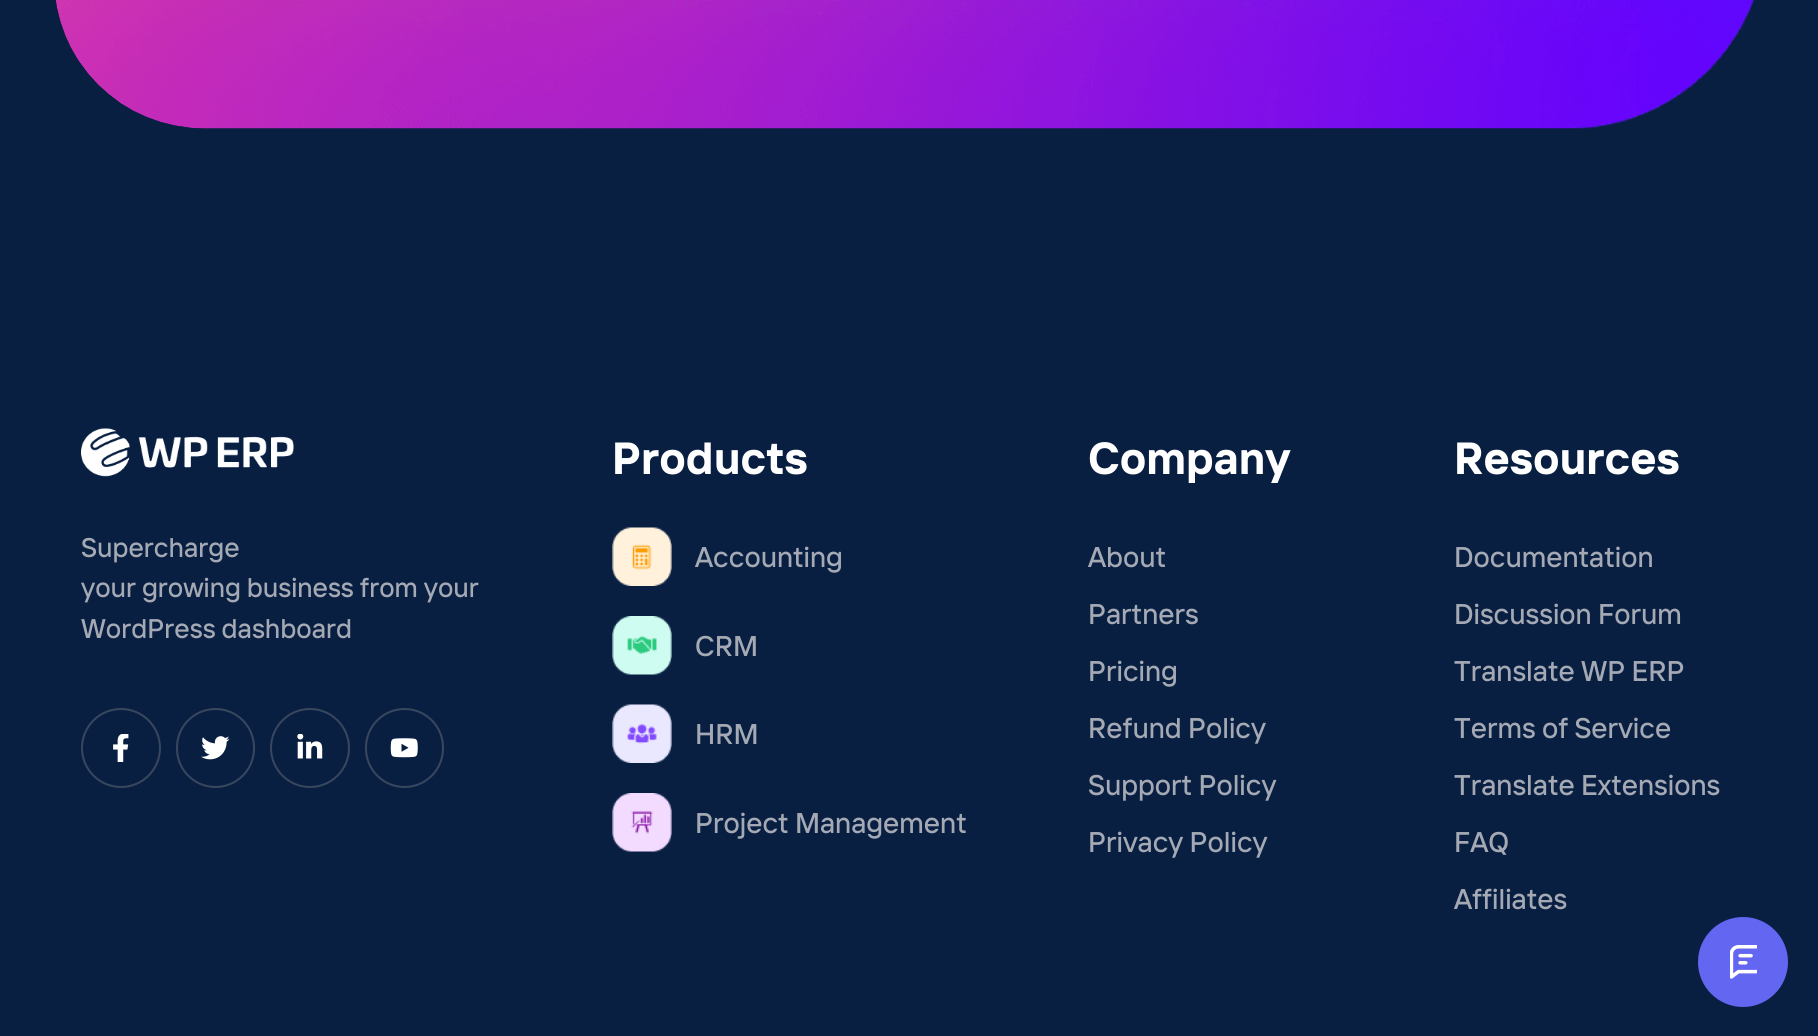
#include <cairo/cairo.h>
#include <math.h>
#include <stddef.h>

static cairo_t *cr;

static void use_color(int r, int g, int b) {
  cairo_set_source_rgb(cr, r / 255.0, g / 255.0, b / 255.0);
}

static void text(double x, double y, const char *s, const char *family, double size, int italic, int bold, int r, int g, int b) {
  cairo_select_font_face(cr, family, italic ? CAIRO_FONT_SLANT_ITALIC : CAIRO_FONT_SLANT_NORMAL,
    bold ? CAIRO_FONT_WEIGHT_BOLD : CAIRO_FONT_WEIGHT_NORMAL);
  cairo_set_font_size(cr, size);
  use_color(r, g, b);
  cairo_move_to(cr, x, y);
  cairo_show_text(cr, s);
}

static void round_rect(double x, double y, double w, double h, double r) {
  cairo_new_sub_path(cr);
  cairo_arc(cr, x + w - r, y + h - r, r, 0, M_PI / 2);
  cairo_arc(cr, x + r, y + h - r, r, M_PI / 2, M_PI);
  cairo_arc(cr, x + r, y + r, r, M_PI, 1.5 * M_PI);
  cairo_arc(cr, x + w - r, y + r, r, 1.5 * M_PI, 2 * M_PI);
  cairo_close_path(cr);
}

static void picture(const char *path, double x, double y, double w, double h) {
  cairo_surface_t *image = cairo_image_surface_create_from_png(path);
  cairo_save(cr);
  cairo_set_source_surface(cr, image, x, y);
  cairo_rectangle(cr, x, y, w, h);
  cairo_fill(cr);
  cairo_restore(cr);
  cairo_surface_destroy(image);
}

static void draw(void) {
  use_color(8, 31, 66);
  cairo_paint(cr);
  picture("img_01.png", 55, 0, 1700, 129);
  picture("img_02.png", 81, 428, 213, 49);
  cairo_arc(cr, 121, 748, 39, 0, 2 * M_PI);
  use_color(56, 71, 94);
  cairo_stroke(cr);
  picture("img_03.png", 113, 734, 16, 28);
  round_rect(177, 709, 77, 78, 38.5);
  cairo_stroke(cr);
  picture("img_04.png", 201, 736, 29, 24);
  cairo_arc(cr, 310, 748, 39, 0, 2 * M_PI);
  cairo_stroke(cr);
  picture("img_05.png", 297, 734, 26, 25);
  round_rect(366, 709, 77, 78, 38.5);
  cairo_stroke(cr);
  picture("img_06.png", 390, 738, 28, 20);
  picture("img_07.png", 612, 527, 60, 59);
  picture("img_08.png", 612, 616, 60, 59);
  picture("img_09.png", 612, 704, 60, 59);
  picture("img_10.png", 612, 793, 60, 59);
  use_color(99, 102, 241);
  cairo_arc(cr, 1743, 962, 44, 0, 2 * M_PI);
  cairo_fill_preserve(cr);
  cairo_stroke(cr);
  picture("img_11.png", 1730, 945, 27, 34);
  text(81, 557, "Supercharge", "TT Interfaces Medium", 27, 0, 0, 164, 169, 180);
  text(81, 597, "your growing business from your", "TT Interfaces Medium", 27, 0, 0, 164, 169, 180);
  text(81, 638, "WordPress dashboard", "TT Interfaces Medium", 27, 0, 0, 164, 169, 180);
  text(612, 474, "Products", "TT Interfaces", 45, 0, 1, 255, 255, 255);
  text(695, 567, "Accounting", "TT Interfaces Medium", 28.5, 0, 0, 164, 169, 180);
  text(695, 656, "CRM", "TT Interfaces Medium", 28.5, 0, 0, 164, 169, 180);
  text(695, 744, "HRM", "TT Interfaces Medium", 28.5, 0, 0, 164, 169, 180);
  text(695, 833, "Project Management", "TT Interfaces Medium", 28.5, 0, 0, 164, 169, 180);
  text(1088, 474, "Company", "TT Interfaces", 45, 0, 1, 255, 255, 255);
  text(1088, 567, "About", "TT Interfaces Medium", 28.5, 0, 0, 164, 169, 180);
  text(1088, 624, "Partners", "TT Interfaces Medium", 28.5, 0, 0, 164, 169, 180);
  text(1088, 681, "Pricing", "TT Interfaces Medium", 28.5, 0, 0, 164, 169, 180);
  text(1088, 738, "Refund Policy", "TT Interfaces Medium", 28.5, 0, 0, 164, 169, 180);
  text(1088, 795, "Support Policy", "TT Interfaces Medium", 28.5, 0, 0, 164, 169, 180);
  text(1088, 852, "Privacy Policy", "TT Interfaces Medium", 28.5, 0, 0, 164, 169, 180);
  text(1454, 474, "Resources", "TT Interfaces", 45, 0, 1, 255, 255, 255);
  text(1454, 567, "Documentation", "TT Interfaces Medium", 28.5, 0, 0, 164, 169, 180);
  text(1454, 624, "Discussion Forum", "TT Interfaces Medium", 28.5, 0, 0, 164, 169, 180);
  text(1454, 681, "Translate WP ERP", "TT Interfaces Medium", 28.5, 0, 0, 164, 169, 180);
  text(1454, 738, "Terms of Service", "TT Interfaces Medium", 28.5, 0, 0, 164, 169, 180);
  text(1454, 795, "Translate Extensions", "TT Interfaces Medium", 28.5, 0, 0, 164, 169, 180);
  text(1454, 852, "FAQ", "TT Interfaces Medium", 28.5, 0, 0, 164, 169, 180);
  text(1454, 909, "Affiliates", "TT Interfaces Medium", 28.5, 0, 0, 164, 169, 180);
}

int main(void) {
  cairo_surface_t *surface = cairo_image_surface_create(CAIRO_FORMAT_RGB24, 1818, 1036);
  cr = cairo_create(surface);
  cairo_font_options_t *options = cairo_font_options_create();
  cairo_font_options_set_hint_metrics(options, CAIRO_HINT_METRICS_OFF);
  cairo_font_options_set_hint_style(options, CAIRO_HINT_STYLE_NONE);
  cairo_set_font_options(cr, options);
  cairo_set_miter_limit(cr, 4);
  draw();
  cairo_surface_write_to_png(surface, "out.png");
  cairo_font_options_destroy(options);
  cairo_destroy(cr);
  cairo_surface_destroy(surface);
  return 0;
}
